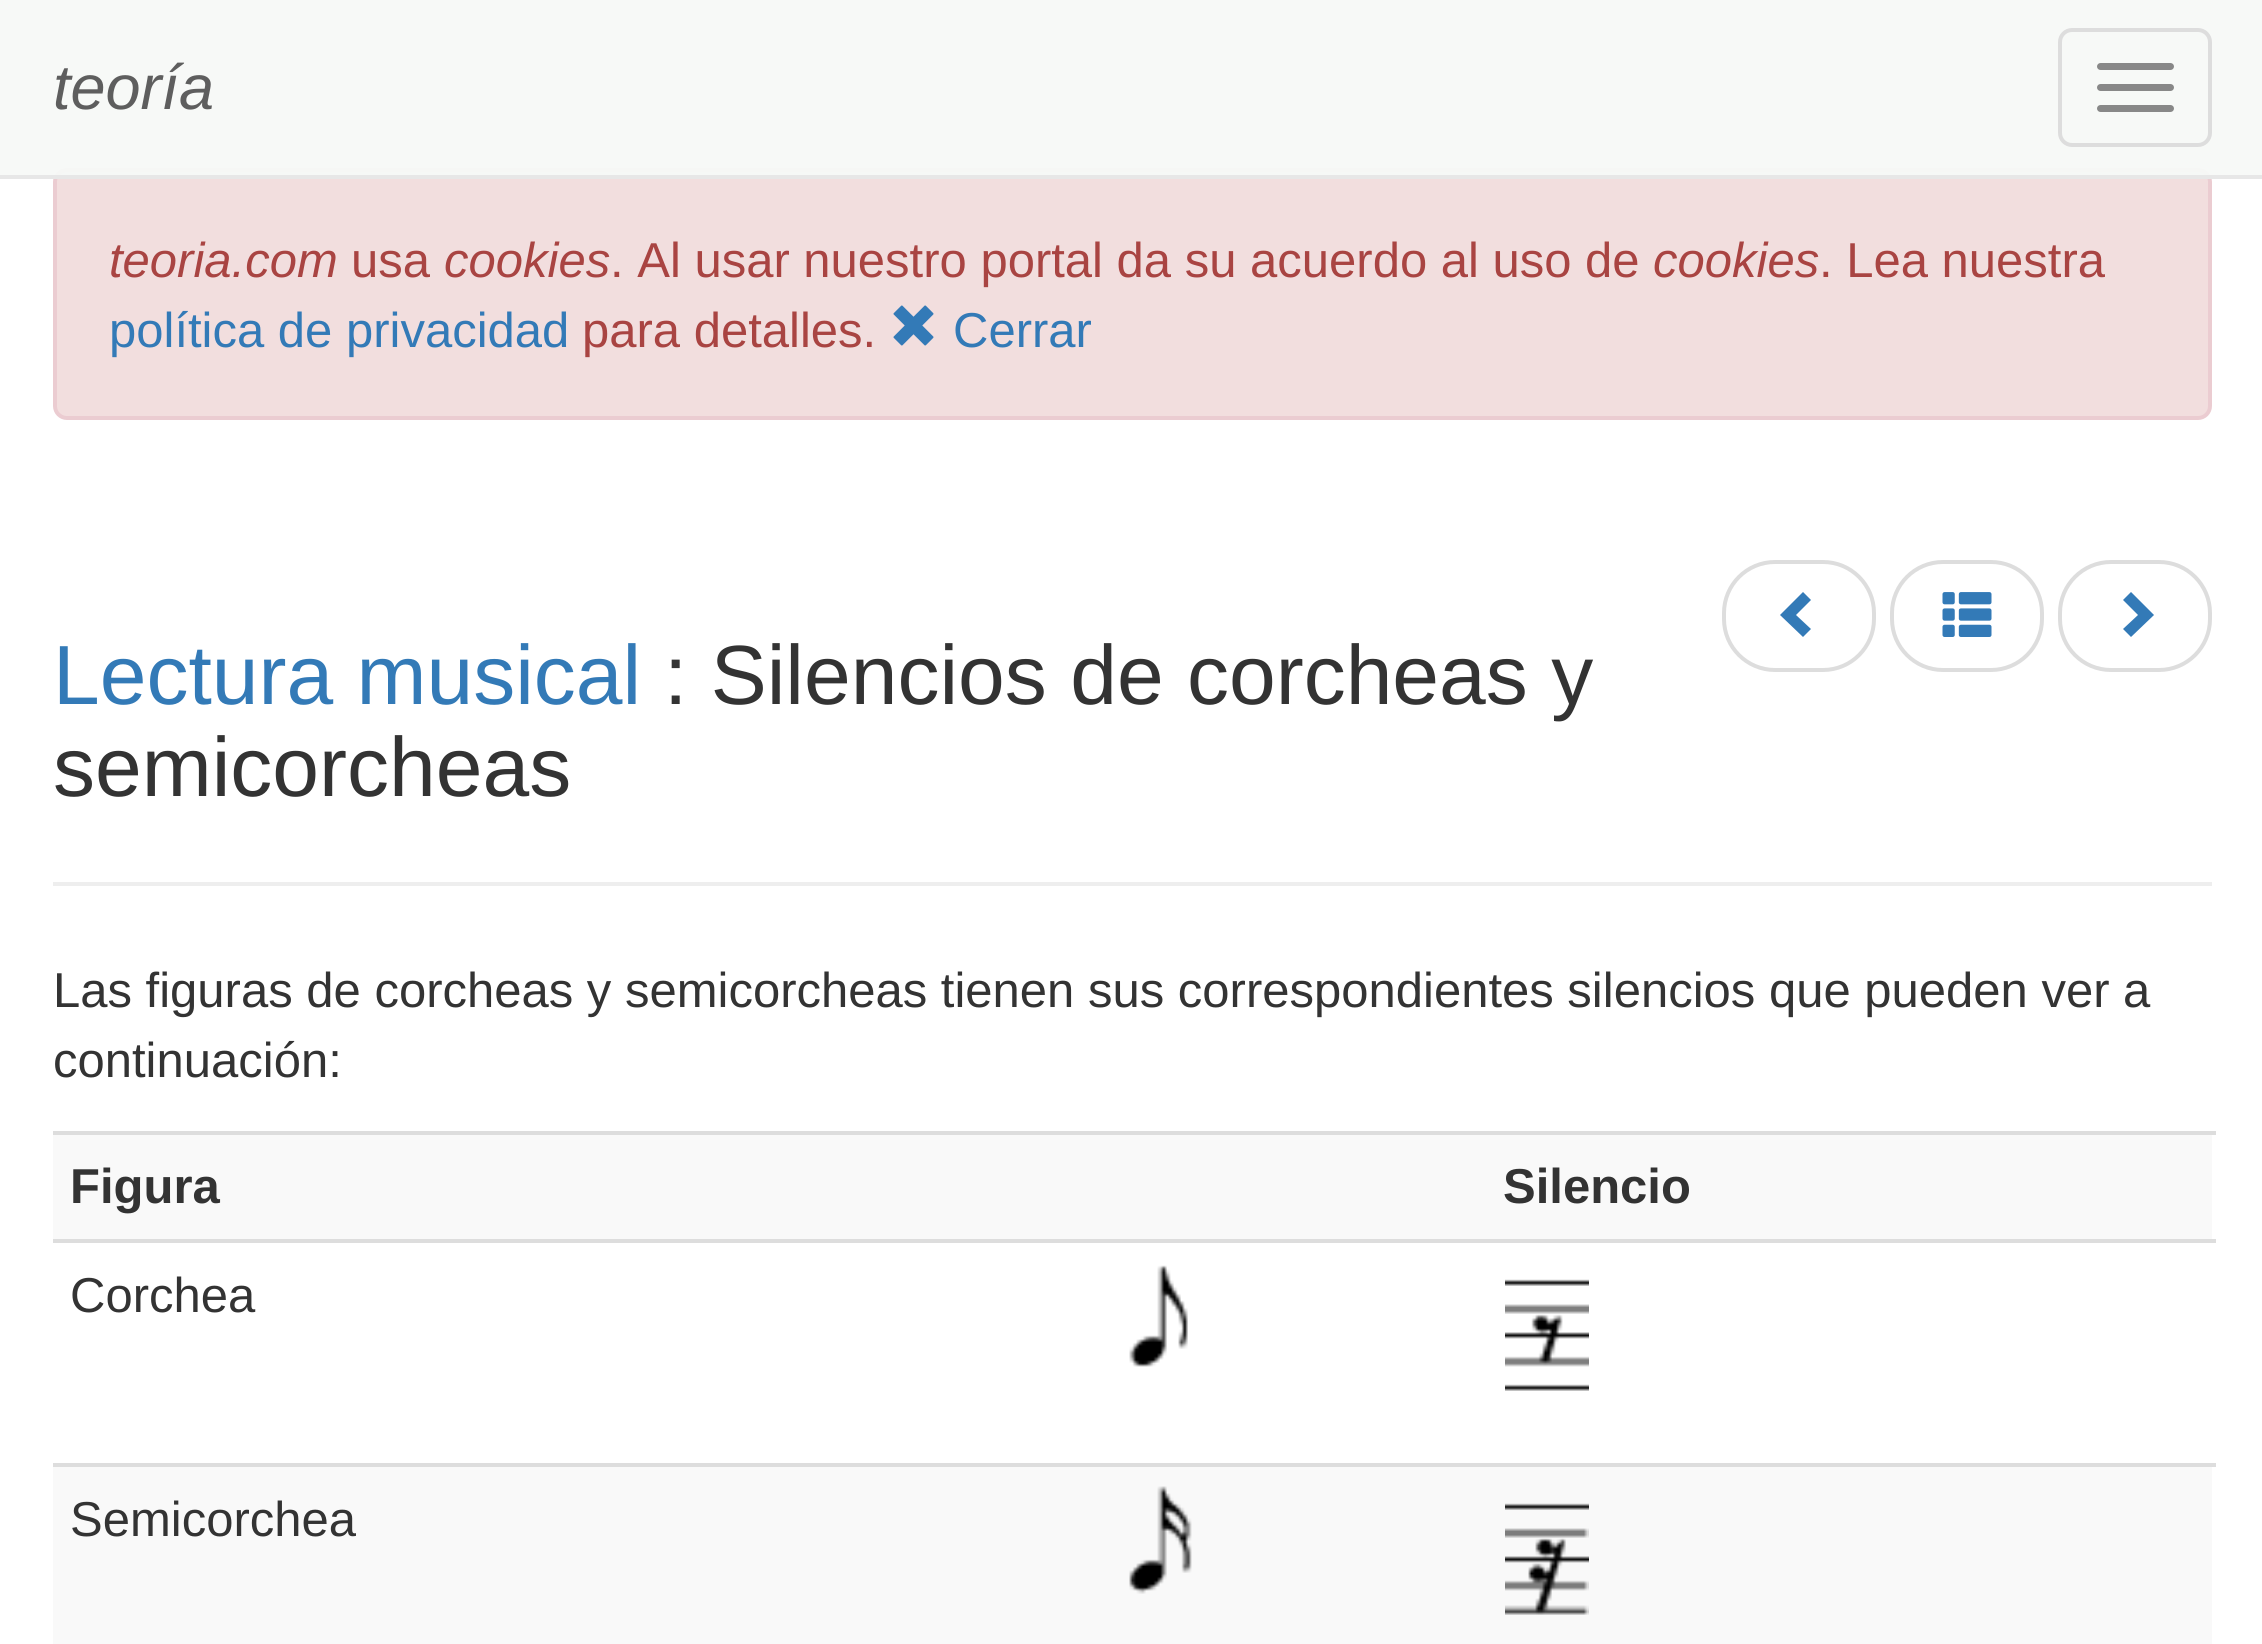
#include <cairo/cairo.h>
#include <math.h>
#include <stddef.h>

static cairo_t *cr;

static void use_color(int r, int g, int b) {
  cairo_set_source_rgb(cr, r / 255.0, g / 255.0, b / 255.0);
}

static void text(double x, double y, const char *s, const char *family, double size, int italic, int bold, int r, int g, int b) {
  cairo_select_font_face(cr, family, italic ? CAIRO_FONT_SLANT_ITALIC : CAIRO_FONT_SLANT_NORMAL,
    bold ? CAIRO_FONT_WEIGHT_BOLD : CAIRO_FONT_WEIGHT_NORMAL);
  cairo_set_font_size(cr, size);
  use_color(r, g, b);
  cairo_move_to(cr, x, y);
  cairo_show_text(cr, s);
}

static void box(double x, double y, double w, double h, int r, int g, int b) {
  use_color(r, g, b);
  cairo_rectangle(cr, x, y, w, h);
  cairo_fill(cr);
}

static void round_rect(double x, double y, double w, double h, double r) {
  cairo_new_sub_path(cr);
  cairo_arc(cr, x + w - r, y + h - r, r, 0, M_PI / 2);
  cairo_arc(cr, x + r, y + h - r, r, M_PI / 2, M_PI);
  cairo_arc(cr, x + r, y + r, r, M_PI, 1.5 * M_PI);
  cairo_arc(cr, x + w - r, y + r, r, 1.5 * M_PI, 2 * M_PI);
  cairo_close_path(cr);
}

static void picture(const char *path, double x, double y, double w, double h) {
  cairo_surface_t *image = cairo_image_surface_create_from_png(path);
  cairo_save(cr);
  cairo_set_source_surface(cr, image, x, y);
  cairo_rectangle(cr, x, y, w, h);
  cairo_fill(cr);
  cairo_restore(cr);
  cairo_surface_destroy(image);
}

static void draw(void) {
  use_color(255, 255, 255);
  cairo_paint(cr);
  use_color(242, 222, 222);
  round_rect(55, 170, 2155, 248, 12);
  cairo_fill_preserve(cr);
  use_color(235, 204, 209);
  cairo_set_line_width(cr, 4);
  cairo_stroke(cr);
  cairo_set_source_rgba(cr, 0.965, 0.973, 0.965, 0.96);
  cairo_rectangle(cr, 0, 0, 2262, 175);
  cairo_fill(cr);
  box(0, 175, 2262, 4, 231, 231, 231);
  round_rect(2060, 30, 150, 115, 12);
  use_color(221, 221, 221);
  cairo_stroke(cr);
  use_color(136, 136, 136);
  round_rect(2097, 63, 77, 7, 3.5);
  cairo_fill(cr);
  round_rect(2097, 84, 77, 7, 3.5);
  cairo_fill(cr);
  round_rect(2097, 105, 77, 7, 3.5);
  cairo_fill(cr);
  picture("img_01.png", 893, 305, 41, 41);
  round_rect(1724, 562, 150, 108, 51);
  use_color(221, 221, 221);
  cairo_stroke(cr);
  use_color(51, 122, 183);
  cairo_new_path(cr);
  cairo_move_to(cr, 1811, 600);
  cairo_line_to(cr, 1796, 615);
  cairo_line_to(cr, 1811, 629);
  cairo_line_to(cr, 1803, 637);
  cairo_line_to(cr, 1780, 615);
  cairo_line_to(cr, 1803, 592);
  cairo_close_path(cr);
  cairo_fill(cr);
  round_rect(1892, 562, 150, 108, 51);
  use_color(221, 221, 221);
  cairo_stroke(cr);
  picture("img_02.png", 1942, 592, 50, 45);
  round_rect(2060, 562, 150, 108, 51);
  cairo_stroke(cr);
  use_color(51, 122, 183);
  cairo_new_path(cr);
  cairo_move_to(cr, 2154, 615);
  cairo_line_to(cr, 2131, 637);
  cairo_line_to(cr, 2123, 629);
  cairo_line_to(cr, 2138, 615);
  cairo_line_to(cr, 2123, 600);
  cairo_line_to(cr, 2131, 592);
  cairo_close_path(cr);
  cairo_fill(cr);
  box(53, 882, 2159, 4, 238, 238, 238);
  box(53, 1135, 2159, 104, 249, 249, 249);
  box(53, 1131, 2163, 4, 221, 221, 221);
  box(53, 1239, 2163, 4, 221, 221, 221);
  picture("img_03.png", 1505, 1279, 84, 112);
  picture("img_04.png", 1129, 1265, 59, 102);
  box(53, 1467, 2159, 177, 249, 249, 249);
  box(53, 1463, 2163, 4, 221, 221, 221);
  picture("img_05.png", 1505, 1503, 84, 112);
  picture("img_06.png", 1129, 1486, 63, 108);
  text(53, 109, "teoría", "Liberation Sans", 63, 1, 0, 94, 94, 94);
  text(109, 277, "teoria.com", "Liberation Sans", 49, 1, 0, 169, 68, 66);
  text(351, 277, "usa", "Liberation Sans", 49, 0, 0, 169, 68, 66);
  text(444, 277, "cookies", "Liberation Sans", 49, 1, 0, 169, 68, 66);
  text(610, 277, ". Al usar nuestro portal da su acuerdo al uso de", "Liberation Sans", 49, 0, 0, 169, 68, 66);
  text(1653, 277, "cookies", "Liberation Sans", 49, 1, 0, 169, 68, 66);
  text(1819, 277, ". Lea nuestra", "Liberation Sans", 49, 0, 0, 169, 68, 66);
  text(109, 347, "política de privacidad", "Liberation Sans", 49, 0, 0, 51, 122, 183);
  text(582, 347, "para detalles.", "Liberation Sans", 49, 0, 0, 169, 68, 66);
  text(953, 347, "Cerrar", "Liberation Sans", 49, 0, 0, 51, 122, 183);
  text(53, 704, "Lectura musical", "Liberation Sans", 84, 0, 0, 51, 122, 183);
  text(664, 704, ": Silencios de corcheas y", "Liberation Sans", 84, 0, 0, 51, 51, 51);
  text(53, 796, "semicorcheas", "Liberation Sans", 84, 0, 0, 51, 51, 51);
  text(53, 1007, "Las figuras de corcheas y semicorcheas tienen sus correspondientes silencios que pueden ver a", "Liberation Sans", 49, 0, 0, 51, 51, 51);
  text(53, 1077, "continuación:", "Liberation Sans", 49, 0, 0, 51, 51, 51);
  text(70, 1203, "Figura", "Liberation Sans", 49, 0, 1, 51, 51, 51);
  text(1503, 1203, "Silencio", "Liberation Sans", 49, 0, 1, 51, 51, 51);
  text(70, 1312, "Corchea", "Liberation Sans", 49, 0, 0, 51, 51, 51);
  text(70, 1536, "Semicorchea", "Liberation Sans", 49, 0, 0, 51, 51, 51);
}

int main(void) {
  cairo_surface_t *surface = cairo_image_surface_create(CAIRO_FORMAT_RGB24, 2262, 1644);
  cr = cairo_create(surface);
  cairo_font_options_t *options = cairo_font_options_create();
  cairo_font_options_set_hint_metrics(options, CAIRO_HINT_METRICS_OFF);
  cairo_font_options_set_hint_style(options, CAIRO_HINT_STYLE_NONE);
  cairo_set_font_options(cr, options);
  cairo_set_miter_limit(cr, 4);
  draw();
  cairo_surface_write_to_png(surface, "out.png");
  cairo_font_options_destroy(options);
  cairo_destroy(cr);
  cairo_surface_destroy(surface);
  return 0;
}
